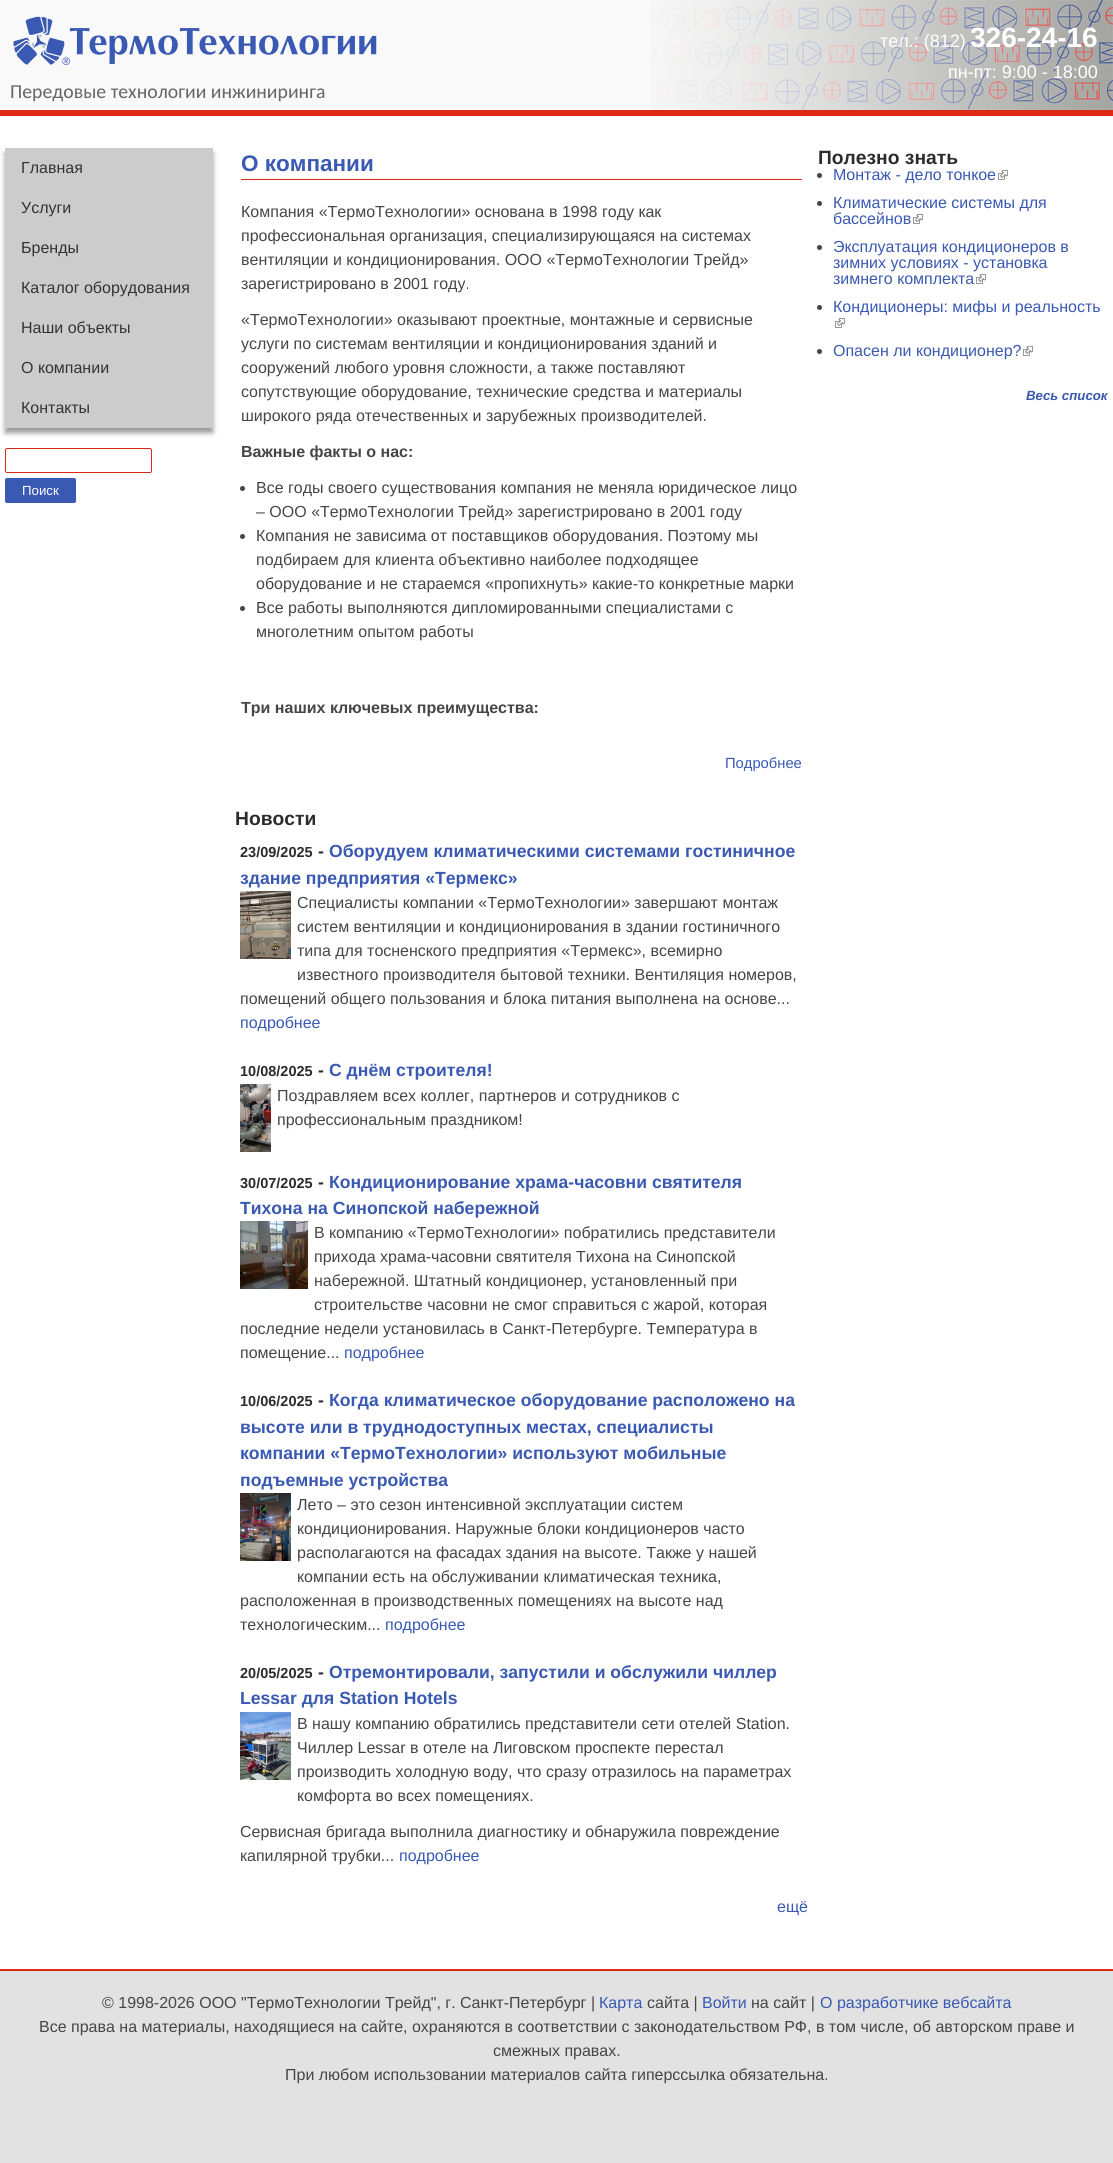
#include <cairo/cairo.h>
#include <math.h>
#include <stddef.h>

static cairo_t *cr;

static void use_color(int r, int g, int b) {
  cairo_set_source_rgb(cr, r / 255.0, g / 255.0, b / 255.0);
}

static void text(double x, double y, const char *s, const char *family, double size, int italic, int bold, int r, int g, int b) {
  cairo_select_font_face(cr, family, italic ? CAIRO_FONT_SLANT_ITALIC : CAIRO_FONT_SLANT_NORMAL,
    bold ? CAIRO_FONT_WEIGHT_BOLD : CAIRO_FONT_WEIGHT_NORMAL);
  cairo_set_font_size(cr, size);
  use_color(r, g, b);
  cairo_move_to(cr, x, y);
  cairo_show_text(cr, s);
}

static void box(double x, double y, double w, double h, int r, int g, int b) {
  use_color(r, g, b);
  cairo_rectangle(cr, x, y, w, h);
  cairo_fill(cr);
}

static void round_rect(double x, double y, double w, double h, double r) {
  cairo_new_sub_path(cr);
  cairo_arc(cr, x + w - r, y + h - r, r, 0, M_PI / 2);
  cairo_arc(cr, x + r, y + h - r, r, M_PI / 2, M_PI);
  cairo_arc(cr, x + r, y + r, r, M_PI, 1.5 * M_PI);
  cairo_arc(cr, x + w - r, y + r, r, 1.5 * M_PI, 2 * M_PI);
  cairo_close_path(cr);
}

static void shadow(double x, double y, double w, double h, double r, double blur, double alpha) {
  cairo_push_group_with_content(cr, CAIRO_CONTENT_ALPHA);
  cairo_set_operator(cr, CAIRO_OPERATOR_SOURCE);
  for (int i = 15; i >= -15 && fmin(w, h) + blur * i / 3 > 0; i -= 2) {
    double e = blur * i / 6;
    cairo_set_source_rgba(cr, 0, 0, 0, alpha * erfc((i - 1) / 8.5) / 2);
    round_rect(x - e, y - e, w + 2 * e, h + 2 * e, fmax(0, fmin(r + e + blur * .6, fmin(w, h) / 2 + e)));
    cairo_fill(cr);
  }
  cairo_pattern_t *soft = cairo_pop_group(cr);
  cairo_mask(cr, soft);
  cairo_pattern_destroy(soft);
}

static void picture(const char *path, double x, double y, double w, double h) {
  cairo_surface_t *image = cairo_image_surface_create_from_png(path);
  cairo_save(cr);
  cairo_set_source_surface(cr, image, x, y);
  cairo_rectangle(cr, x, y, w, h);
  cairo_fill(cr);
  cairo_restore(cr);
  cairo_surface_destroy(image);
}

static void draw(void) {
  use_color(226, 226, 226);
  cairo_paint(cr);
  box(0, 116, 1113, 1853, 255, 255, 255);
  box(0, 0, 1113, 110, 249, 249, 249);
  picture("img_01.png", 651, 0, 462, 110);
  picture("img_02.png", 13, 16, 364, 50);
  box(0, 110, 1113, 6, 220, 40, 21);
  box(0, 1969, 1113, 2, 220, 40, 21);
  use_color(0, 0, 0);
  shadow(5, 153, 208, 280, 0, 2.5, 0.4);
  box(5, 148, 208, 280, 204, 204, 204);
  round_rect(5.5, 448.5, 146, 24, 1.5);
  use_color(220, 40, 21);
  cairo_set_line_width(cr, 1);
  cairo_stroke(cr);
  use_color(57, 89, 178);
  round_rect(5.5, 478.5, 70, 24, 1.5);
  cairo_fill_preserve(cr);
  cairo_stroke(cr);
  box(241, 179, 561, 1, 220, 40, 21);
  use_color(70, 70, 70);
  cairo_arc(cr, 242.5, 488.5, 2.5, 0, 2 * M_PI);
  cairo_fill(cr);
  cairo_arc(cr, 242.5, 536.5, 2.5, 0, 2 * M_PI);
  cairo_fill(cr);
  cairo_arc(cr, 242.5, 608.5, 2.5, 0, 2 * M_PI);
  cairo_fill(cr);
  picture("img_03.png", 240, 891, 51, 68);
  picture("img_04.png", 240, 1084, 31, 68);
  picture("img_05.png", 240, 1221, 68, 68);
  picture("img_06.png", 240, 1493, 51, 68);
  picture("img_07.png", 240, 1712, 51, 68);
  cairo_arc(cr, 819.5, 175.5, 2.5, 0, 2 * M_PI);
  cairo_fill(cr);
  picture("img_08.png", 998, 170, 10, 10);
  cairo_arc(cr, 819.5, 203.5, 2.5, 0, 2 * M_PI);
  cairo_fill(cr);
  picture("img_08.png", 913, 214, 10, 10);
  cairo_arc(cr, 819.5, 247.5, 2.5, 0, 2 * M_PI);
  cairo_fill(cr);
  picture("img_08.png", 976, 274, 10, 10);
  cairo_arc(cr, 819.5, 307.5, 2.5, 0, 2 * M_PI);
  cairo_fill(cr);
  picture("img_08.png", 835, 318, 10, 10);
  cairo_arc(cr, 819.5, 351.5, 2.5, 0, 2 * M_PI);
  cairo_fill(cr);
  picture("img_08.png", 1023, 346, 10, 10);
  text(880, 47, "тел.: (812)", "Liberation Sans", 18, 0, 0, 255, 255, 255);
  text(970, 47, "326-24-16", "Liberation Sans", 28, 0, 1, 255, 255, 255);
  text(948, 78, "пн-пт: 9:00 - 18:00", "Liberation Sans", 18, 0, 0, 255, 255, 255);
  text(10, 98, "Передовые технологии инжиниринга", "Carlito", 19.75, 0, 0, 102, 102, 102);
  text(21, 173, "Главная", "Liberation Sans", 16, 0, 0, 51, 51, 51);
  text(21, 213, "Услуги", "Liberation Sans", 16, 0, 0, 51, 51, 51);
  text(21, 253, "Бренды", "Liberation Sans", 16, 0, 0, 51, 51, 51);
  text(21, 293, "Каталог оборудования", "Liberation Sans", 16, 0, 0, 51, 51, 51);
  text(21, 333, "Наши объекты", "Liberation Sans", 16, 0, 0, 51, 51, 51);
  text(21, 373, "О компании", "Liberation Sans", 16, 0, 0, 51, 51, 51);
  text(21, 413, "Контакты", "Liberation Sans", 16, 0, 0, 51, 51, 51);
  text(22, 495, "Поиск", "Liberation Sans", 13.25, 0, 0, 255, 255, 255);
  text(241, 171, "О компании", "Liberation Sans", 22.5, 0, 1, 57, 89, 178);
  text(241, 217, "Компания «ТермоТехнологии» основана в 1998 году как", "Liberation Sans", 16, 0, 0, 70, 70, 70);
  text(241, 241, "профессиональная организация, специализирующаяся на системах", "Liberation Sans", 16, 0, 0, 70, 70, 70);
  text(241, 265, "вентиляции и кондиционирования. ООО «ТермоТехнологии Трейд»", "Liberation Sans", 16, 0, 0, 70, 70, 70);
  text(241, 289, "зарегистрировано в 2001 году.", "Liberation Sans", 16, 0, 0, 70, 70, 70);
  text(241, 325, "«ТермоТехнологии» оказывают проектные, монтажные и сервисные", "Liberation Sans", 16, 0, 0, 70, 70, 70);
  text(241, 349, "услуги по системам вентиляции и кондиционирования зданий и", "Liberation Sans", 16, 0, 0, 70, 70, 70);
  text(241, 373, "сооружений любого уровня сложности, а также поставляют", "Liberation Sans", 16, 0, 0, 70, 70, 70);
  text(241, 397, "сопутствующие оборудование, технические средства и материалы", "Liberation Sans", 16, 0, 0, 70, 70, 70);
  text(241, 421, "широкого ряда отечественных и зарубежных производителей.", "Liberation Sans", 16, 0, 0, 70, 70, 70);
  text(241, 457, "Важные факты о нас:", "Liberation Sans", 16, 0, 1, 70, 70, 70);
  text(256, 493, "Все годы своего существования компания не меняла юридическое лицо", "Liberation Sans", 16, 0, 0, 70, 70, 70);
  text(256, 517, "– ООО «ТермоТехнологии Трейд» зарегистрировано в 2001 году", "Liberation Sans", 16, 0, 0, 70, 70, 70);
  text(256, 541, "Компания не зависима от поставщиков оборудования. Поэтому мы", "Liberation Sans", 16, 0, 0, 70, 70, 70);
  text(256, 565, "подбираем для клиента объективно наиболее подходящее", "Liberation Sans", 16, 0, 0, 70, 70, 70);
  text(256, 589, "оборудование и не стараемся «пропихнуть» какие-то конкретные марки", "Liberation Sans", 16, 0, 0, 70, 70, 70);
  text(256, 613, "Все работы выполняются дипломированными специалистами с", "Liberation Sans", 16, 0, 0, 70, 70, 70);
  text(256, 637, "многолетним опытом работы", "Liberation Sans", 16, 0, 0, 70, 70, 70);
  text(241, 713, "Три наших ключевых преимущества:", "Liberation Sans", 16, 0, 1, 70, 70, 70);
  text(725, 768, "Подробнее", "Liberation Sans", 14.75, 0, 0, 57, 89, 178);
  text(235, 825, "Новости", "Liberation Sans", 19.25, 0, 1, 44, 44, 44);
  text(240, 857, "23/09/2025", "Liberation Sans", 14.5, 0, 1, 44, 44, 44);
  text(318, 857, "-", "Liberation Sans", 17.6, 0, 1, 44, 44, 44);
  text(329, 857, "Оборудуем климатическими системами гостиничное", "Liberation Sans", 17.6, 0, 1, 57, 89, 178);
  text(240, 884, "здание предприятия «Термекс»", "Liberation Sans", 17.6, 0, 1, 57, 89, 178);
  text(297, 908, "Специалисты компании «ТермоТехнологии» завершают монтаж", "Liberation Sans", 16, 0, 0, 70, 70, 70);
  text(297, 932, "систем вентиляции и кондиционирования в здании гостиничного", "Liberation Sans", 16, 0, 0, 70, 70, 70);
  text(297, 956, "типа для тосненского предприятия «Термекс», всемирно", "Liberation Sans", 16, 0, 0, 70, 70, 70);
  text(297, 980, "известного производителя бытовой техники. Вентиляция номеров,", "Liberation Sans", 16, 0, 0, 70, 70, 70);
  text(240, 1004, "помещений общего пользования и блока питания выполнена на основе...", "Liberation Sans", 16, 0, 0, 70, 70, 70);
  text(240, 1028, "подробнее", "Liberation Sans", 16, 0, 0, 57, 89, 178);
  text(240, 1076, "10/08/2025", "Liberation Sans", 14.5, 0, 1, 44, 44, 44);
  text(318, 1076, "-", "Liberation Sans", 17.6, 0, 1, 44, 44, 44);
  text(329, 1076, "С днём строителя!", "Liberation Sans", 17.6, 0, 1, 57, 89, 178);
  text(277, 1101, "Поздравляем всех коллег, партнеров и сотрудников с", "Liberation Sans", 16, 0, 0, 70, 70, 70);
  text(277, 1125, "профессиональным праздником!", "Liberation Sans", 16, 0, 0, 70, 70, 70);
  text(240, 1188, "30/07/2025", "Liberation Sans", 14.5, 0, 1, 44, 44, 44);
  text(318, 1188, "-", "Liberation Sans", 17.6, 0, 1, 44, 44, 44);
  text(329, 1188, "Кондиционирование храма-часовни святителя", "Liberation Sans", 17.6, 0, 1, 57, 89, 178);
  text(240, 1214, "Тихона на Синопской набережной", "Liberation Sans", 17.6, 0, 1, 57, 89, 178);
  text(314, 1238, "В компанию «ТермоТехнологии» побратились представители", "Liberation Sans", 16, 0, 0, 70, 70, 70);
  text(314, 1262, "прихода храма-часовни святителя Тихона на Синопской", "Liberation Sans", 16, 0, 0, 70, 70, 70);
  text(314, 1286, "набережной. Штатный кондиционер, установленный при", "Liberation Sans", 16, 0, 0, 70, 70, 70);
  text(314, 1310, "строительстве часовни не смог справиться с жарой, которая", "Liberation Sans", 16, 0, 0, 70, 70, 70);
  text(240, 1334, "последние недели установилась в Санкт-Петербурге. Температура в", "Liberation Sans", 16, 0, 0, 70, 70, 70);
  text(240, 1358, "помещение...", "Liberation Sans", 16, 0, 0, 70, 70, 70);
  text(344, 1358, "подробнее", "Liberation Sans", 16, 0, 0, 57, 89, 178);
  text(240, 1406, "10/06/2025", "Liberation Sans", 14.5, 0, 1, 44, 44, 44);
  text(318, 1406, "-", "Liberation Sans", 17.6, 0, 1, 44, 44, 44);
  text(329, 1406, "Когда климатическое оборудование расположено на", "Liberation Sans", 17.6, 0, 1, 57, 89, 178);
  text(240, 1433, "высоте или в труднодоступных местах, специалисты", "Liberation Sans", 17.6, 0, 1, 57, 89, 178);
  text(240, 1459, "компании «ТермоТехнологии» используют мобильные", "Liberation Sans", 17.6, 0, 1, 57, 89, 178);
  text(240, 1486, "подъемные устройства", "Liberation Sans", 17.6, 0, 1, 57, 89, 178);
  text(297, 1510, "Лето – это сезон интенсивной эксплуатации систем", "Liberation Sans", 16, 0, 0, 70, 70, 70);
  text(297, 1534, "кондиционирования. Наружные блоки кондиционеров часто", "Liberation Sans", 16, 0, 0, 70, 70, 70);
  text(297, 1558, "располагаются на фасадах здания на высоте. Также у нашей", "Liberation Sans", 16, 0, 0, 70, 70, 70);
  text(297, 1582, "компании есть на обслуживании климатическая техника,", "Liberation Sans", 16, 0, 0, 70, 70, 70);
  text(240, 1606, "расположенная в производственных помещениях на высоте над", "Liberation Sans", 16, 0, 0, 70, 70, 70);
  text(240, 1630, "технологическим...", "Liberation Sans", 16, 0, 0, 70, 70, 70);
  text(385, 1630, "подробнее", "Liberation Sans", 16, 0, 0, 57, 89, 178);
  text(240, 1678, "20/05/2025", "Liberation Sans", 14.5, 0, 1, 44, 44, 44);
  text(318, 1678, "-", "Liberation Sans", 17.6, 0, 1, 44, 44, 44);
  text(329, 1678, "Отремонтировали, запустили и обслужили чиллер", "Liberation Sans", 17.6, 0, 1, 57, 89, 178);
  text(240, 1704, "Lessar для Station Hotels", "Liberation Sans", 17.6, 0, 1, 57, 89, 178);
  text(297, 1729, "В нашу компанию обратились представители сети отелей Station.", "Liberation Sans", 16, 0, 0, 70, 70, 70);
  text(297, 1753, "Чиллер Lessar в отеле на Лиговском проспекте перестал", "Liberation Sans", 16, 0, 0, 70, 70, 70);
  text(297, 1777, "производить холодную воду, что сразу отразилось на параметрах", "Liberation Sans", 16, 0, 0, 70, 70, 70);
  text(297, 1801, "комфорта во всех помещениях.", "Liberation Sans", 16, 0, 0, 70, 70, 70);
  text(240, 1837, "Сервисная бригада выполнила диагностику и обнаружила повреждение", "Liberation Sans", 16, 0, 0, 70, 70, 70);
  text(240, 1861, "капилярной трубки...", "Liberation Sans", 16, 0, 0, 70, 70, 70);
  text(399, 1861, "подробнее", "Liberation Sans", 16, 0, 0, 57, 89, 178);
  text(777, 1912, "ещё", "Liberation Sans", 16, 0, 0, 57, 89, 178);
  text(818, 164, "Полезно знать", "Liberation Sans", 19.25, 0, 1, 44, 44, 44);
  text(833, 180, "Монтаж - дело тонкое", "Liberation Sans", 16, 0, 0, 57, 89, 178);
  text(833, 208, "Климатические системы для", "Liberation Sans", 16, 0, 0, 57, 89, 178);
  text(833, 224, "бассейнов", "Liberation Sans", 16, 0, 0, 57, 89, 178);
  text(833, 252, "Эксплуатация кондиционеров в", "Liberation Sans", 16, 0, 0, 57, 89, 178);
  text(833, 268, "зимних условиях - установка", "Liberation Sans", 16, 0, 0, 57, 89, 178);
  text(833, 284, "зимнего комплекта", "Liberation Sans", 16, 0, 0, 57, 89, 178);
  text(833, 312, "Кондиционеры: мифы и реальность", "Liberation Sans", 16, 0, 0, 57, 89, 178);
  text(833, 356, "Опасен ли кондиционер?", "Liberation Sans", 16, 0, 0, 57, 89, 178);
  text(1026, 400, "Весь список", "Liberation Sans", 13.25, 1, 1, 57, 89, 178);
  text(102, 2008, "© 1998-2026 ООО \"ТермоТехнологии Трейд\", г. Санкт-Петербург |", "Liberation Sans", 16, 0, 0, 70, 70, 70);
  text(599, 2008, "Карта", "Liberation Sans", 16, 0, 0, 57, 89, 178);
  text(647, 2008, "сайта |", "Liberation Sans", 16, 0, 0, 70, 70, 70);
  text(702, 2008, "Войти", "Liberation Sans", 16, 0, 0, 57, 89, 178);
  text(751, 2008, "на сайт |", "Liberation Sans", 16, 0, 0, 70, 70, 70);
  text(820, 2008, "О разработчике вебсайта", "Liberation Sans", 16, 0, 0, 57, 89, 178);
  text(39, 2032, "Все права на материалы, находящиеся на сайте, охраняются в соответствии с законодательством РФ, в том числе, об авторском праве и", "Liberation Sans", 16, 0, 0, 70, 70, 70);
  text(493, 2056, "смежных правах.", "Liberation Sans", 16, 0, 0, 70, 70, 70);
  text(285, 2080, "При любом использовании материалов сайта гиперссылка обязательна.", "Liberation Sans", 16, 0, 0, 70, 70, 70);
}

int main(void) {
  cairo_surface_t *surface = cairo_image_surface_create(CAIRO_FORMAT_RGB24, 1113, 2163);
  cr = cairo_create(surface);
  cairo_font_options_t *options = cairo_font_options_create();
  cairo_font_options_set_hint_metrics(options, CAIRO_HINT_METRICS_OFF);
  cairo_font_options_set_hint_style(options, CAIRO_HINT_STYLE_NONE);
  cairo_set_font_options(cr, options);
  cairo_set_miter_limit(cr, 4);
  draw();
  cairo_surface_write_to_png(surface, "out.png");
  cairo_font_options_destroy(options);
  cairo_destroy(cr);
  cairo_surface_destroy(surface);
  return 0;
}
